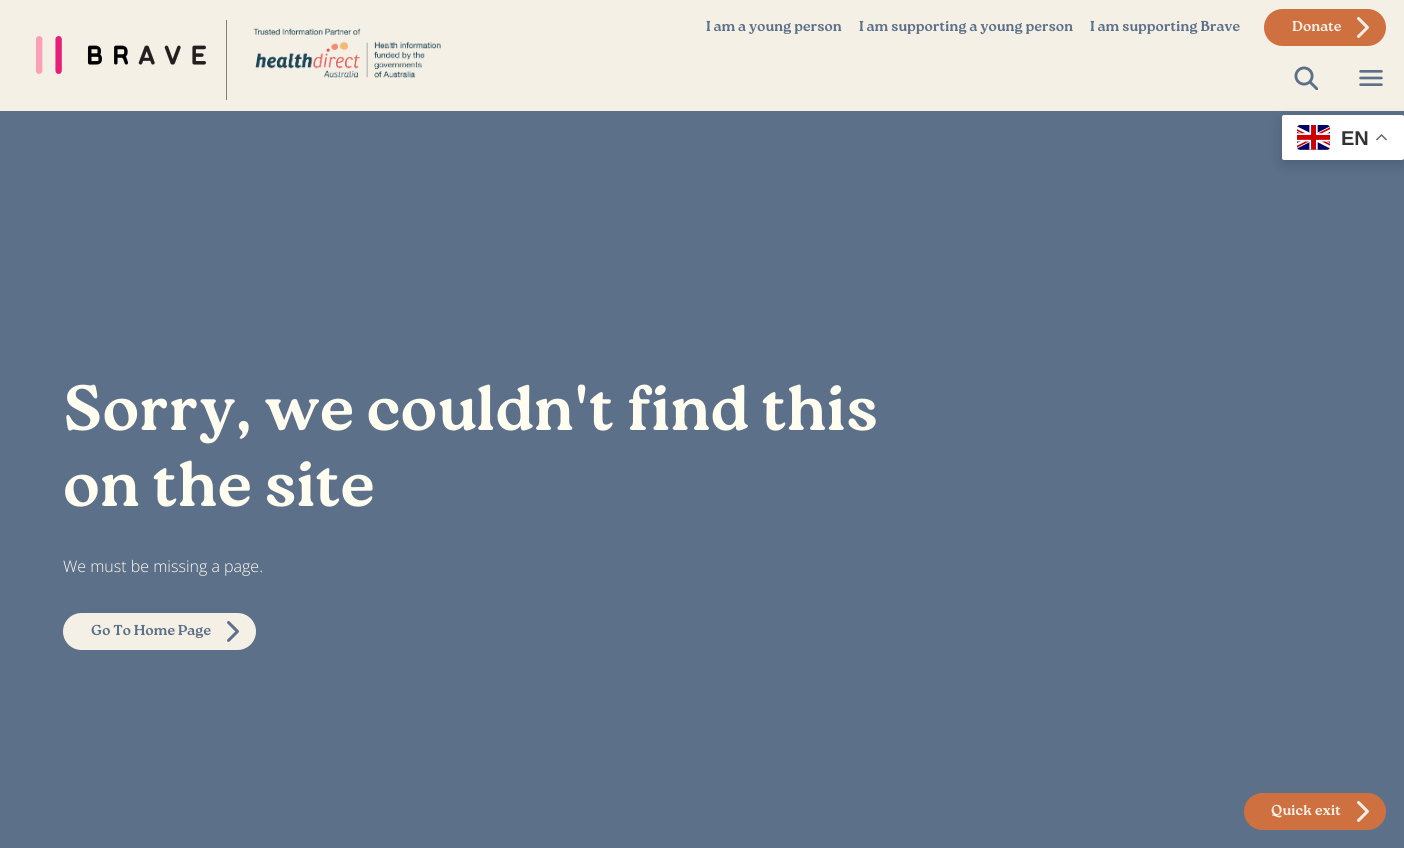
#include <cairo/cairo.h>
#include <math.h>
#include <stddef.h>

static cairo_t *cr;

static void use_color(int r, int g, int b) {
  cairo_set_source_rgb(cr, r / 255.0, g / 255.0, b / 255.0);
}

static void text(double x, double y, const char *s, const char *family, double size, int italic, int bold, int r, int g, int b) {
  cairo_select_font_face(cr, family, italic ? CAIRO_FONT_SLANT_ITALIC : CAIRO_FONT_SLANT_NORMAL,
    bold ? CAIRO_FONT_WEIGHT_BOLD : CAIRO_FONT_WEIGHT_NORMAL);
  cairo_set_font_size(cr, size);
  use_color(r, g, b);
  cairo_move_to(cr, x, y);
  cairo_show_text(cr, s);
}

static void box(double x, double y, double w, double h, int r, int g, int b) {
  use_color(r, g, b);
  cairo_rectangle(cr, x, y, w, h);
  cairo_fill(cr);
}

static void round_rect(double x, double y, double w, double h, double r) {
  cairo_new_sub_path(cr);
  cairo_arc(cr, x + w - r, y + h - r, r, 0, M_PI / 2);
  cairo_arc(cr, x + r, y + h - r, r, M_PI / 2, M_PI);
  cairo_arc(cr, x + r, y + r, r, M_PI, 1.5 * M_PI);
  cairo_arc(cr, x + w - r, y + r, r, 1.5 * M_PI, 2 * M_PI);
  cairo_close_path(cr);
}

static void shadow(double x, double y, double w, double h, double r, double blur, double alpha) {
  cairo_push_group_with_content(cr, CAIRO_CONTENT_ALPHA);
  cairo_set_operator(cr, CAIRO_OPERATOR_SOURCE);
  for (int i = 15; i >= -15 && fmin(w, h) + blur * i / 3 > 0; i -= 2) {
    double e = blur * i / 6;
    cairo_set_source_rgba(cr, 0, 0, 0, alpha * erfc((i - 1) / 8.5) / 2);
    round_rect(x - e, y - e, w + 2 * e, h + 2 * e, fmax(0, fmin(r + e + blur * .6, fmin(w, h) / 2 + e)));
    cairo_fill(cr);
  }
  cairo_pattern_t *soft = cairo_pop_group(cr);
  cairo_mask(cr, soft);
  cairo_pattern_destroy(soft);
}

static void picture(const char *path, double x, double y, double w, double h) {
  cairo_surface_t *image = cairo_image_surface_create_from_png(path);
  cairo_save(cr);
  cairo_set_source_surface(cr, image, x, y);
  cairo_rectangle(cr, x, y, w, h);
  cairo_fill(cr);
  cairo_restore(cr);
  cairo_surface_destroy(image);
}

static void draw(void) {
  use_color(245, 240, 229);
  cairo_paint(cr);
  picture("img_01.png", 36, 36, 170, 38);
  box(226, 20, 1, 80, 128, 128, 128);
  picture("img_02.png", 253, 28, 188, 50);
  picture("img_03.png", 706, 20, 136, 14);
  picture("img_04.png", 859, 20, 214, 14);
  picture("img_05.png", 1090, 20, 150, 14);
  use_color(207, 112, 64);
  round_rect(1265, 10, 120, 35, 17.5);
  cairo_fill_preserve(cr);
  cairo_stroke(cr);
  picture("img_06.png", 1292, 20, 49, 12);
  picture("img_07.png", 1357, 17, 12, 21);
  picture("img_08.png", 1294, 66, 24, 24);
  picture("img_09.png", 1359, 70, 24, 16);
  box(0, 111, 1404, 737, 92, 112, 138);
  use_color(0, 0, 0);
  shadow(1282, 120, 122, 45, 2, 7.5, 0.15);
  use_color(255, 255, 255);
  round_rect(1282, 115, 122, 45, 2);
  cairo_fill(cr);
  picture("img_10.png", 1297, 125, 33, 25);
  picture("img_11.png", 1376, 134, 11, 7);
  picture("img_12.png", 66, 384, 810, 60);
  picture("img_13.png", 65, 460, 308, 47);
  use_color(245, 240, 229);
  round_rect(64, 614, 191, 35, 17.5);
  cairo_fill_preserve(cr);
  cairo_stroke(cr);
  picture("img_14.png", 91, 624, 120, 14);
  picture("img_15.png", 227, 621, 12, 21);
  use_color(207, 112, 64);
  round_rect(1245, 794, 140, 35, 17.5);
  cairo_fill_preserve(cr);
  cairo_stroke(cr);
  picture("img_16.png", 1271, 804, 70, 14);
  picture("img_07.png", 1357, 801, 12, 21);
  text(1341, 145, "EN", "Liberation Sans", 20, 0, 1, 51, 51, 51);
  text(63, 572, "We must be missing a page.", "Open Sans Light", 16, 0, 0, 255, 252, 240);
}

int main(void) {
  cairo_surface_t *surface = cairo_image_surface_create(CAIRO_FORMAT_RGB24, 1404, 848);
  cr = cairo_create(surface);
  cairo_font_options_t *options = cairo_font_options_create();
  cairo_font_options_set_hint_metrics(options, CAIRO_HINT_METRICS_OFF);
  cairo_font_options_set_hint_style(options, CAIRO_HINT_STYLE_NONE);
  cairo_set_font_options(cr, options);
  cairo_set_miter_limit(cr, 4);
  draw();
  cairo_surface_write_to_png(surface, "out.png");
  cairo_font_options_destroy(options);
  cairo_destroy(cr);
  cairo_surface_destroy(surface);
  return 0;
}
